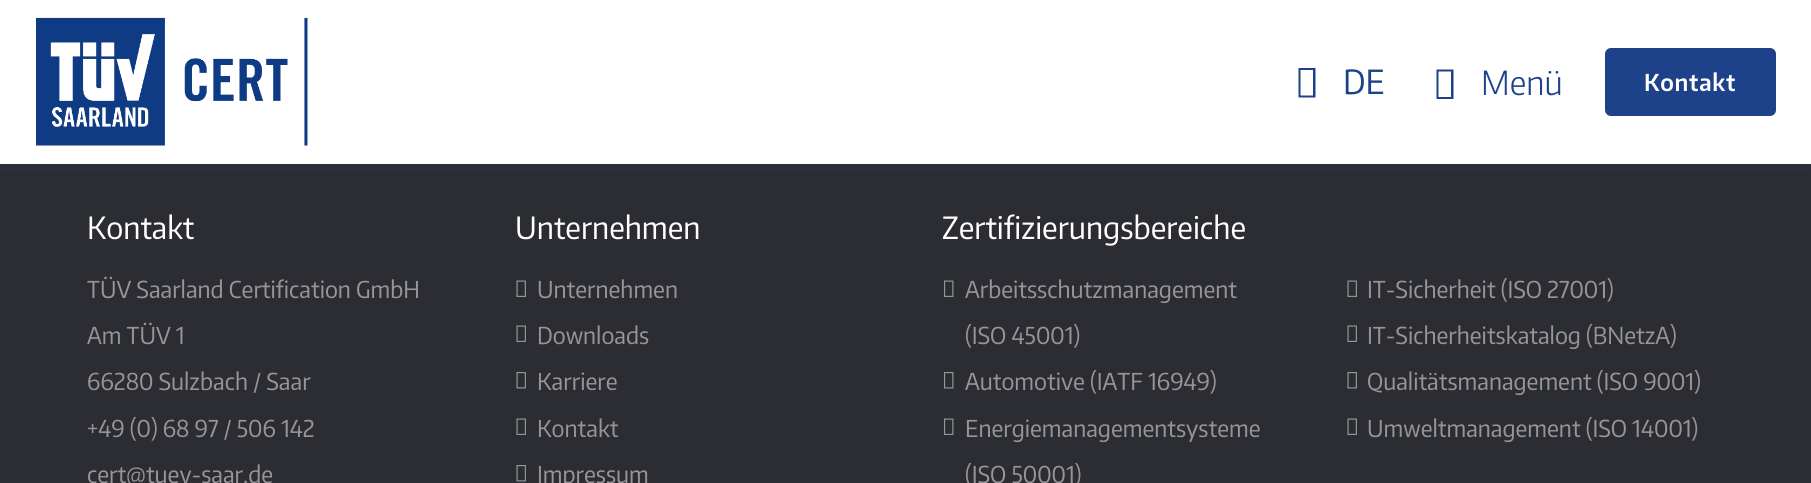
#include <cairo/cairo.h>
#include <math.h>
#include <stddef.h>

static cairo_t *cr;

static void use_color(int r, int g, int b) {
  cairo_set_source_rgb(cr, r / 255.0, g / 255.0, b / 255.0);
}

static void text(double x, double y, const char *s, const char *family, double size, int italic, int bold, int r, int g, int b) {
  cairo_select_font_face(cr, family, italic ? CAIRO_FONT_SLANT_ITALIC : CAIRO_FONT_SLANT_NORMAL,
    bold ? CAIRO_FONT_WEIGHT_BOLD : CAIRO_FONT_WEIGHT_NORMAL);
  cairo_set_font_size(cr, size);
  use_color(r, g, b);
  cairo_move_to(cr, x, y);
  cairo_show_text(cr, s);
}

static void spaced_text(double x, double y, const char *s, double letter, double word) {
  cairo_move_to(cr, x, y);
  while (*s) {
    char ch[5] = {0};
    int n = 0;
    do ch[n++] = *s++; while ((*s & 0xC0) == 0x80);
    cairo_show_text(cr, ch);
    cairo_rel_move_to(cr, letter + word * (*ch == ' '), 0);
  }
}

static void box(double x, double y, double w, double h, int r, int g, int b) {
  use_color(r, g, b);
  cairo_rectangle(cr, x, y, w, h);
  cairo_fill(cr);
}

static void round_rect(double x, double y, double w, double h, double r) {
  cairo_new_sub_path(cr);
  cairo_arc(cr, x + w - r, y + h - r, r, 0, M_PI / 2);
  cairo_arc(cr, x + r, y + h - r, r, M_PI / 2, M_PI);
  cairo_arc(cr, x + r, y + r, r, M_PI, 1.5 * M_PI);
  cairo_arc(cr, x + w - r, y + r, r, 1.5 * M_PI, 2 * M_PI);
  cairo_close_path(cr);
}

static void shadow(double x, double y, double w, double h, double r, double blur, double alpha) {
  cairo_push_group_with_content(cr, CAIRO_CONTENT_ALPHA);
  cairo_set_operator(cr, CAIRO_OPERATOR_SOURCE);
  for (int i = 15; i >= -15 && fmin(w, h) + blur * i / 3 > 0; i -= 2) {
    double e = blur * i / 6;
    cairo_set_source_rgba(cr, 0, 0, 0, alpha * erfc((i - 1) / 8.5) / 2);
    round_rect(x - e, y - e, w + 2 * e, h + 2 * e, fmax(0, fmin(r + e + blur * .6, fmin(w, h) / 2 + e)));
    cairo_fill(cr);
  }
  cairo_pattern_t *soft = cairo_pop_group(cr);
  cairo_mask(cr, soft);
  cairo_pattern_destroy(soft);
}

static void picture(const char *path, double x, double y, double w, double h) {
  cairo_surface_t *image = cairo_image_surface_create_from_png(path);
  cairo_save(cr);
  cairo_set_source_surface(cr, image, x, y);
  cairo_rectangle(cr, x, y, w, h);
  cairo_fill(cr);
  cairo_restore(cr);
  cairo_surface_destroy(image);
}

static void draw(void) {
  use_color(44, 45, 50);
  cairo_paint(cr);
  use_color(28, 66, 138);
  shadow(0, 0, 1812, 164, 0, 15, 0.15);
  box(0, 0, 1811, 164, 255, 255, 255);
  picture("img_01.png", 36, 17, 272, 129);
  use_color(29, 66, 138);
  cairo_new_path(cr);
  cairo_move_to(cr, 1298.5, 97.5);
  cairo_line_to(cr, 1298.5, 68);
  cairo_line_to(cr, 1315.5, 68);
  cairo_line_to(cr, 1315.5, 97.5);
  cairo_close_path(cr);
  cairo_move_to(cr, 1300.5, 95.5);
  cairo_line_to(cr, 1313, 95.5);
  cairo_line_to(cr, 1313, 70);
  cairo_line_to(cr, 1300.5, 70);
  cairo_close_path(cr);
  cairo_fill(cr);
  cairo_new_path(cr);
  cairo_move_to(cr, 1436.5, 99);
  cairo_line_to(cr, 1436.5, 69.5);
  cairo_line_to(cr, 1453.5, 69.5);
  cairo_line_to(cr, 1453.5, 99);
  cairo_close_path(cr);
  cairo_move_to(cr, 1438.5, 97);
  cairo_line_to(cr, 1451, 97);
  cairo_line_to(cr, 1451, 71.5);
  cairo_line_to(cr, 1438.5, 71.5);
  cairo_close_path(cr);
  cairo_fill(cr);
  round_rect(1606, 49, 169, 66, 5);
  cairo_fill_preserve(cr);
  cairo_stroke(cr);
  picture("img_02.png", 516, 280, 10, 17);
  picture("img_02.png", 516, 325, 10, 17);
  picture("img_03.png", 516, 372, 10, 17);
  picture("img_02.png", 516, 418, 10, 17);
  picture("img_03.png", 516, 465, 10, 17);
  picture("img_04.png", 944, 280, 10, 17);
  picture("img_02.png", 1347, 280, 10, 17);
  picture("img_02.png", 1347, 325, 10, 17);
  picture("img_05.png", 944, 372, 10, 17);
  picture("img_03.png", 1347, 372, 10, 17);
  picture("img_04.png", 944, 418, 10, 17);
  picture("img_02.png", 1347, 418, 10, 17);
  text(1343, 94, "DE", "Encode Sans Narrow", 33, 0, 0, 29, 66, 138);
  text(1481, 95, "Menü", "Encode Sans Narrow Light", 33, 0, 0, 29, 66, 138);
  cairo_select_font_face(cr, "Encode Sans Narrow SemiBold", CAIRO_FONT_SLANT_NORMAL, CAIRO_FONT_WEIGHT_NORMAL);
  cairo_set_font_size(cr, 23.1);
  use_color(255, 255, 255);
  spaced_text(1644, 91, "Kontakt", 0.75, 0);
  text(87, 239, "Kontakt", "Encode Sans Narrow", 30.4, 0, 0, 255, 255, 255);
  text(87, 298, "TÜV Saarland Certification GmbH", "Encode Sans Narrow", 23.1, 0, 0, 150, 150, 153);
  text(87, 344, "Am TÜV 1", "Encode Sans Narrow", 23.1, 0, 0, 150, 150, 153);
  text(87, 390, "66280 Sulzbach / Saar", "Encode Sans Narrow", 23.1, 0, 0, 150, 150, 153);
  text(87, 437, "+49 (0) 68 97 / 506 142", "Encode Sans Narrow", 23.1, 0, 0, 150, 150, 153);
  text(87, 483, "cert@tuev-saar.de", "Encode Sans Narrow", 23.1, 0, 0, 150, 150, 153);
  text(515, 239, "Unternehmen", "Encode Sans Narrow", 30.4, 0, 0, 255, 255, 255);
  text(537, 298, "Unternehmen", "Encode Sans Narrow", 23.1, 0, 0, 150, 150, 153);
  text(537, 344, "Downloads", "Encode Sans Narrow", 23.1, 0, 0, 150, 150, 153);
  text(537, 390, "Karriere", "Encode Sans Narrow", 23.1, 0, 0, 150, 150, 153);
  text(537, 437, "Kontakt", "Encode Sans Narrow", 23.1, 0, 0, 150, 150, 153);
  text(537, 483, "Impressum", "Encode Sans Narrow", 23.1, 0, 0, 150, 150, 153);
  text(942, 239, "Zertifizierungsbereiche", "Encode Sans Narrow", 30.4, 0, 0, 255, 255, 255);
  text(965, 298, "Arbeitsschutzmanagement", "Encode Sans Narrow", 23.1, 0, 0, 150, 150, 153);
  text(965, 344, "(ISO 45001)", "Encode Sans Narrow", 23.1, 0, 0, 150, 150, 153);
  text(1367, 298, "IT-Sicherheit (ISO 27001)", "Encode Sans Narrow", 23.1, 0, 0, 150, 150, 153);
  text(1367, 344, "IT-Sicherheitskatalog (BNetzA)", "Encode Sans Narrow", 23.1, 0, 0, 150, 150, 153);
  text(965, 390, "Automotive (IATF 16949)", "Encode Sans Narrow", 23.1, 0, 0, 150, 150, 153);
  text(1367, 390, "Qualitätsmanagement (ISO 9001)", "Encode Sans Narrow", 23.1, 0, 0, 150, 150, 153);
  text(965, 437, "Energiemanagementsysteme", "Encode Sans Narrow", 23.1, 0, 0, 150, 150, 153);
  text(965, 483, "(ISO 50001)", "Encode Sans Narrow", 23.1, 0, 0, 150, 150, 153);
  text(1367, 437, "Umweltmanagement (ISO 14001)", "Encode Sans Narrow", 23.1, 0, 0, 150, 150, 153);
}

int main(void) {
  cairo_surface_t *surface = cairo_image_surface_create(CAIRO_FORMAT_RGB24, 1811, 483);
  cr = cairo_create(surface);
  cairo_font_options_t *options = cairo_font_options_create();
  cairo_font_options_set_hint_metrics(options, CAIRO_HINT_METRICS_OFF);
  cairo_font_options_set_hint_style(options, CAIRO_HINT_STYLE_NONE);
  cairo_set_font_options(cr, options);
  cairo_set_miter_limit(cr, 4);
  draw();
  cairo_surface_write_to_png(surface, "out.png");
  cairo_font_options_destroy(options);
  cairo_destroy(cr);
  cairo_surface_destroy(surface);
  return 0;
}
